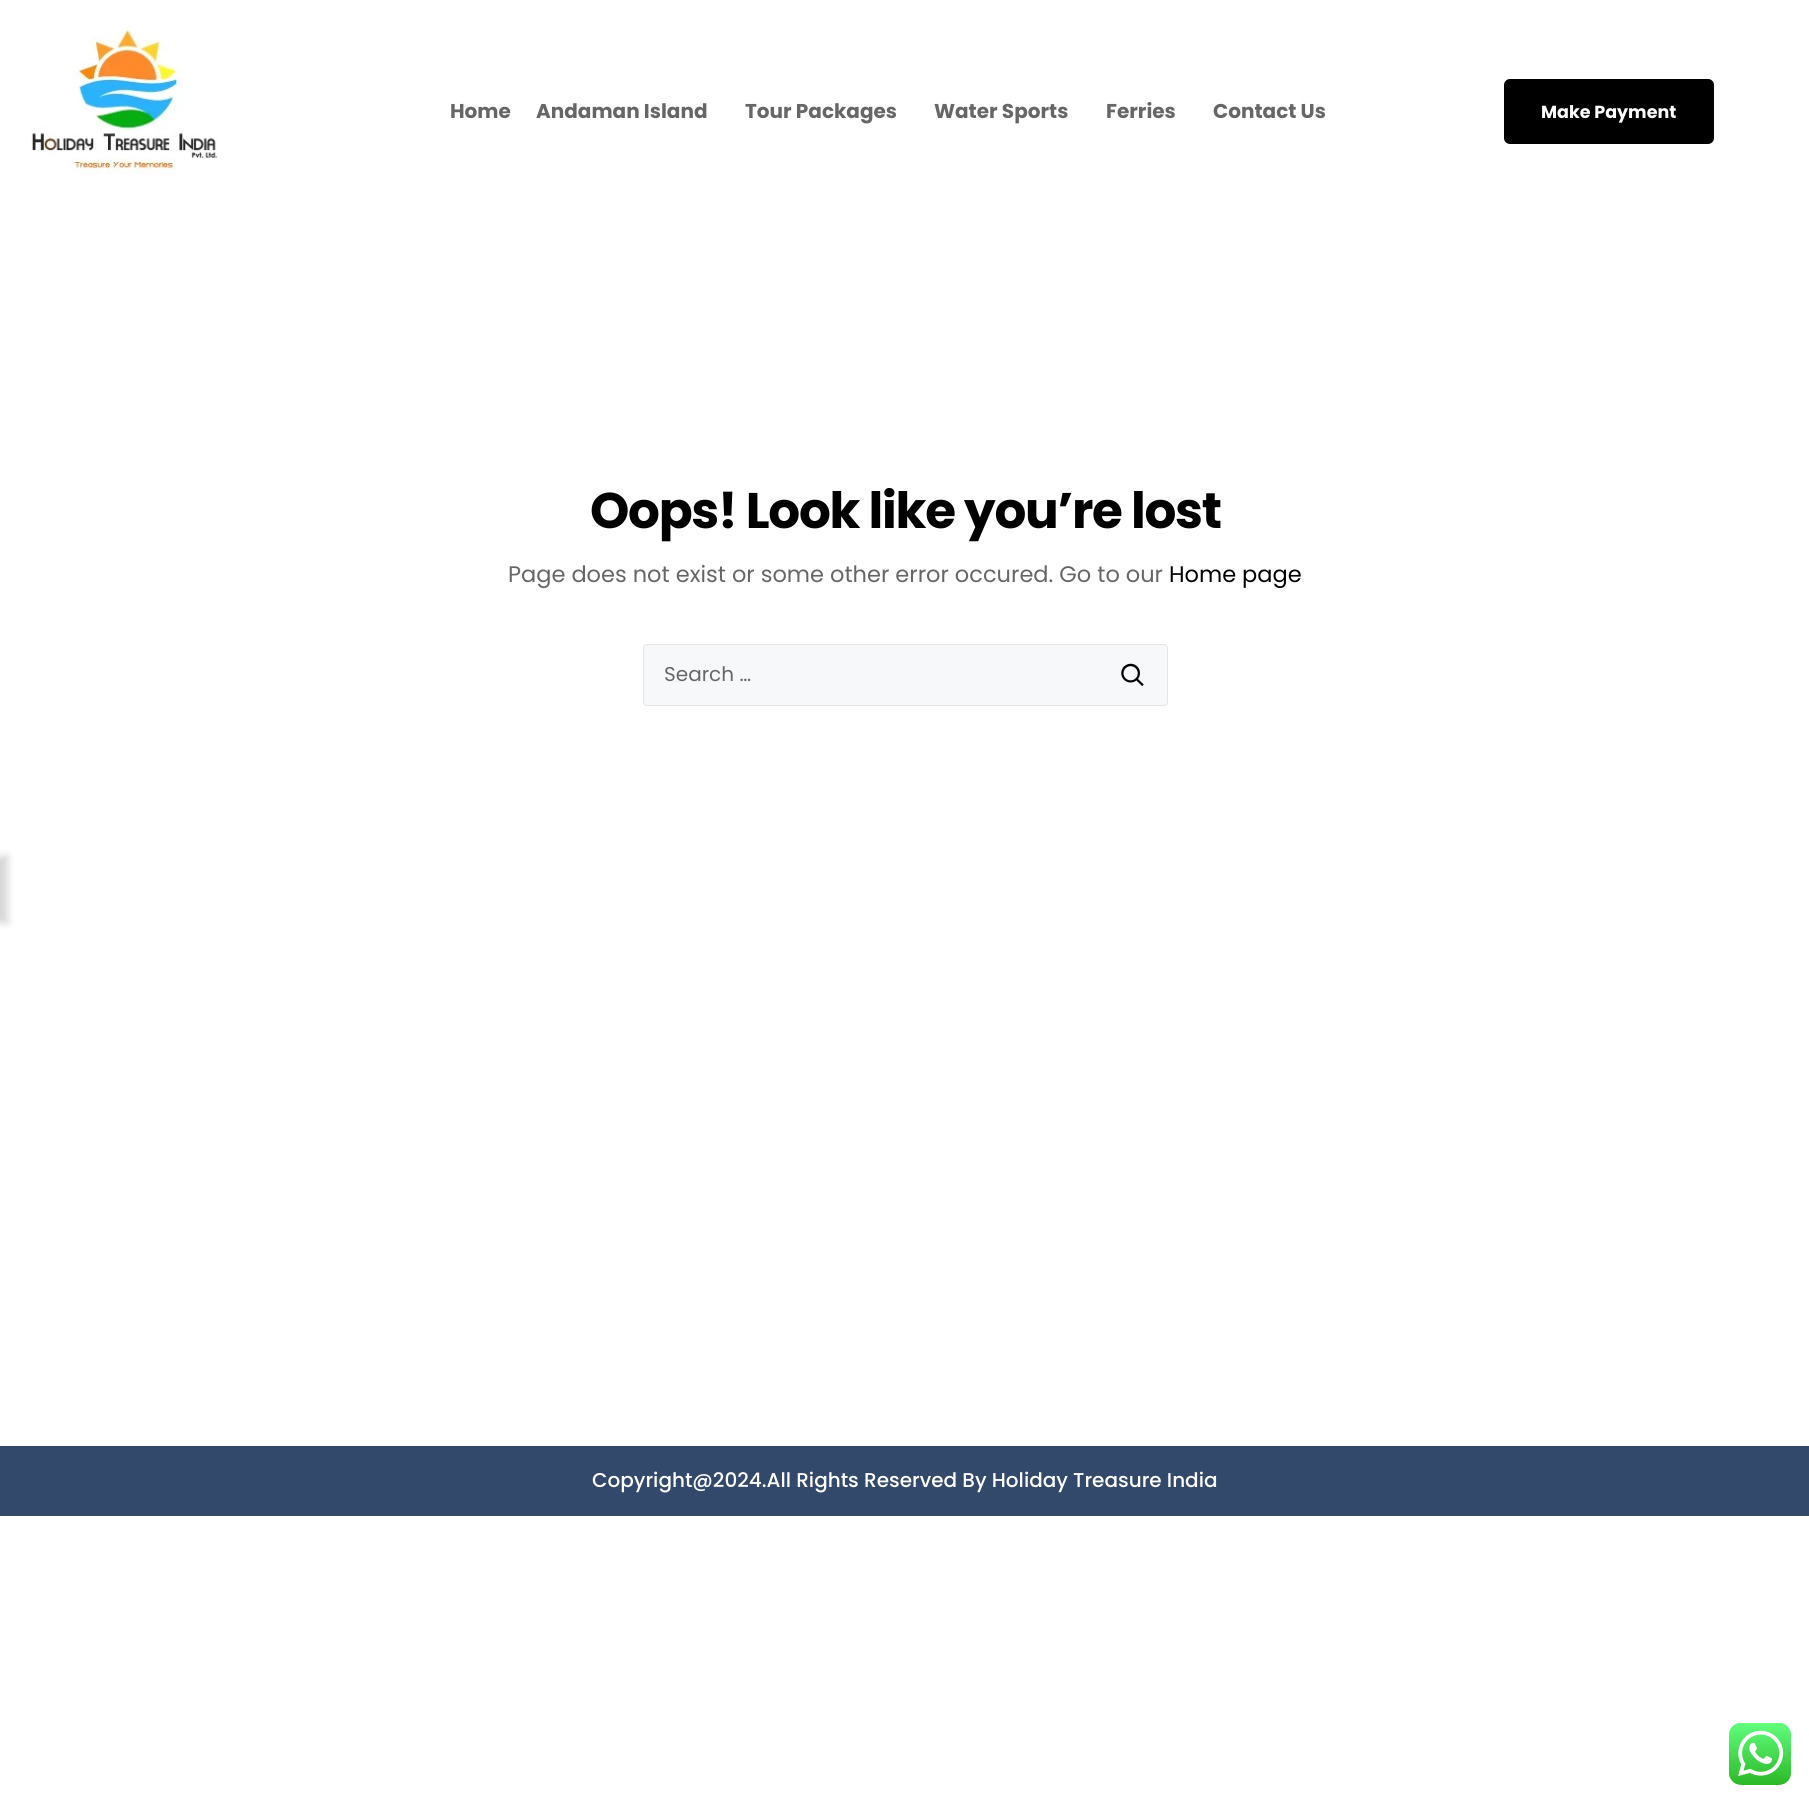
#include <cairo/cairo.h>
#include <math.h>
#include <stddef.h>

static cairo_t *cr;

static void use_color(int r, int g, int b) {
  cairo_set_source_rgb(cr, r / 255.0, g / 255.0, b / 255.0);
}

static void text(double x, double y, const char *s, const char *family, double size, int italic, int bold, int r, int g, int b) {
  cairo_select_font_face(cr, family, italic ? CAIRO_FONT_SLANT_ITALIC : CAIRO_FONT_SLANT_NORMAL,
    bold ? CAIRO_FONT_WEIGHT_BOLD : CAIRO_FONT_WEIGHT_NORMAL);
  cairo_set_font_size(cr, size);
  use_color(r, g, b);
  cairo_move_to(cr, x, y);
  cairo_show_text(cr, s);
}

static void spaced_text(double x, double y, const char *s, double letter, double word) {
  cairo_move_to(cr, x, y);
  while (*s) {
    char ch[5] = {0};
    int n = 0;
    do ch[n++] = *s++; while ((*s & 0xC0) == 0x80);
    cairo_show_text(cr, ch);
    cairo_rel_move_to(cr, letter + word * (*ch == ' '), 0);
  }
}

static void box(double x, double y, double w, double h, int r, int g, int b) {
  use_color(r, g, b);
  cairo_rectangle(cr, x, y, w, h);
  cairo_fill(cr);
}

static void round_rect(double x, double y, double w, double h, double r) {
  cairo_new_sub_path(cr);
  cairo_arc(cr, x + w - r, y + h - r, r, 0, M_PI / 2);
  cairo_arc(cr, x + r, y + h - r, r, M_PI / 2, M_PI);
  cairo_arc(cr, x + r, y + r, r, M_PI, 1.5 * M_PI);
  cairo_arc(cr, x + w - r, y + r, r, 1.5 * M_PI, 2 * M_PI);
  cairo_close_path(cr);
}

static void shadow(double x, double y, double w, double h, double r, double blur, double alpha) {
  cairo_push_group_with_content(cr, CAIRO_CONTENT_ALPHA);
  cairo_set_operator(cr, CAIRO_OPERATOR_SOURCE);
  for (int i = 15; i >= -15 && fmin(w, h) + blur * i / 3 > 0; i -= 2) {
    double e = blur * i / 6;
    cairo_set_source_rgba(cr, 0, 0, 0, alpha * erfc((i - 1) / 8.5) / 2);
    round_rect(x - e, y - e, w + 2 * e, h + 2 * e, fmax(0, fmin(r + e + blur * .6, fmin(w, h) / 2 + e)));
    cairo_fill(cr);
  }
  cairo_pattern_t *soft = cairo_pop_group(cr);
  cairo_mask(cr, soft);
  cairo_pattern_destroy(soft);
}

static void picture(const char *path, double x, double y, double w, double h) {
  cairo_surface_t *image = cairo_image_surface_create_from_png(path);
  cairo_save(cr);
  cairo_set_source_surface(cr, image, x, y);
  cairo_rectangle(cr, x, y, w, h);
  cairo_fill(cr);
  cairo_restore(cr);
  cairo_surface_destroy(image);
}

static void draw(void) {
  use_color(255, 255, 255);
  cairo_paint(cr);
  use_color(0, 0, 0);
  shadow(-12, 856, 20, 67, 0, 4, 0.16);
  picture("img_01.png", 31, 27, 187, 147);
  use_color(0, 0, 0);
  round_rect(1504, 79, 210, 65, 6);
  cairo_fill(cr);
  use_color(247, 248, 250);
  round_rect(643, 644, 525, 62, 6);
  cairo_fill(cr);
  round_rect(643.5, 644.5, 524, 61, 3.5);
  use_color(229, 229, 229);
  cairo_set_line_width(cr, 1);
  cairo_stroke(cr);
  picture("img_02.png", 1121, 663, 23, 23);
  box(0, 1446, 1809, 70, 51, 73, 107);
  picture("img_03.png", 1729, 1723, 62, 62);
  text(450, 118, "Home", "Poppins", 20, 0, 1, 102, 102, 102);
  text(536, 118, "Andaman Island", "Poppins", 20, 0, 1, 102, 102, 102);
  text(745, 118, "Tour Packages", "Poppins", 20, 0, 1, 102, 102, 102);
  text(934, 118, "Water Sports", "Poppins", 20, 0, 1, 102, 102, 102);
  text(1106, 118, "Ferries", "Poppins", 20, 0, 1, 102, 102, 102);
  text(1213, 118, "Contact Us", "Poppins", 20, 0, 1, 102, 102, 102);
  text(1541, 118, "Make Payment", "Poppins", 17.5, 0, 1, 255, 255, 255);
  cairo_set_font_size(cr, 50);
  use_color(0, 0, 0);
  spaced_text(590, 528, "Oops! Look like you’re lost", -1.25, 0);
  text(508, 582, "Page does not exist or some other error occured. Go to our", "Poppins", 22.5, 0, 0, 102, 102, 102);
  text(1169, 582, "Home page", "Poppins", 22.5, 0, 0, 0, 0, 0);
  text(664, 681, "Search …", "Poppins", 20, 0, 0, 102, 102, 102);
  text(592, 1487, "Copyright@2024.All Rights Reserved By Holiday Treasure India", "Poppins Medium", 20, 0, 0, 255, 255, 255);
}

int main(void) {
  cairo_surface_t *surface = cairo_image_surface_create(CAIRO_FORMAT_RGB24, 1809, 1803);
  cr = cairo_create(surface);
  cairo_font_options_t *options = cairo_font_options_create();
  cairo_font_options_set_hint_metrics(options, CAIRO_HINT_METRICS_OFF);
  cairo_font_options_set_hint_style(options, CAIRO_HINT_STYLE_NONE);
  cairo_set_font_options(cr, options);
  cairo_set_miter_limit(cr, 4);
  draw();
  cairo_surface_write_to_png(surface, "out.png");
  cairo_font_options_destroy(options);
  cairo_destroy(cr);
  cairo_surface_destroy(surface);
  return 0;
}
